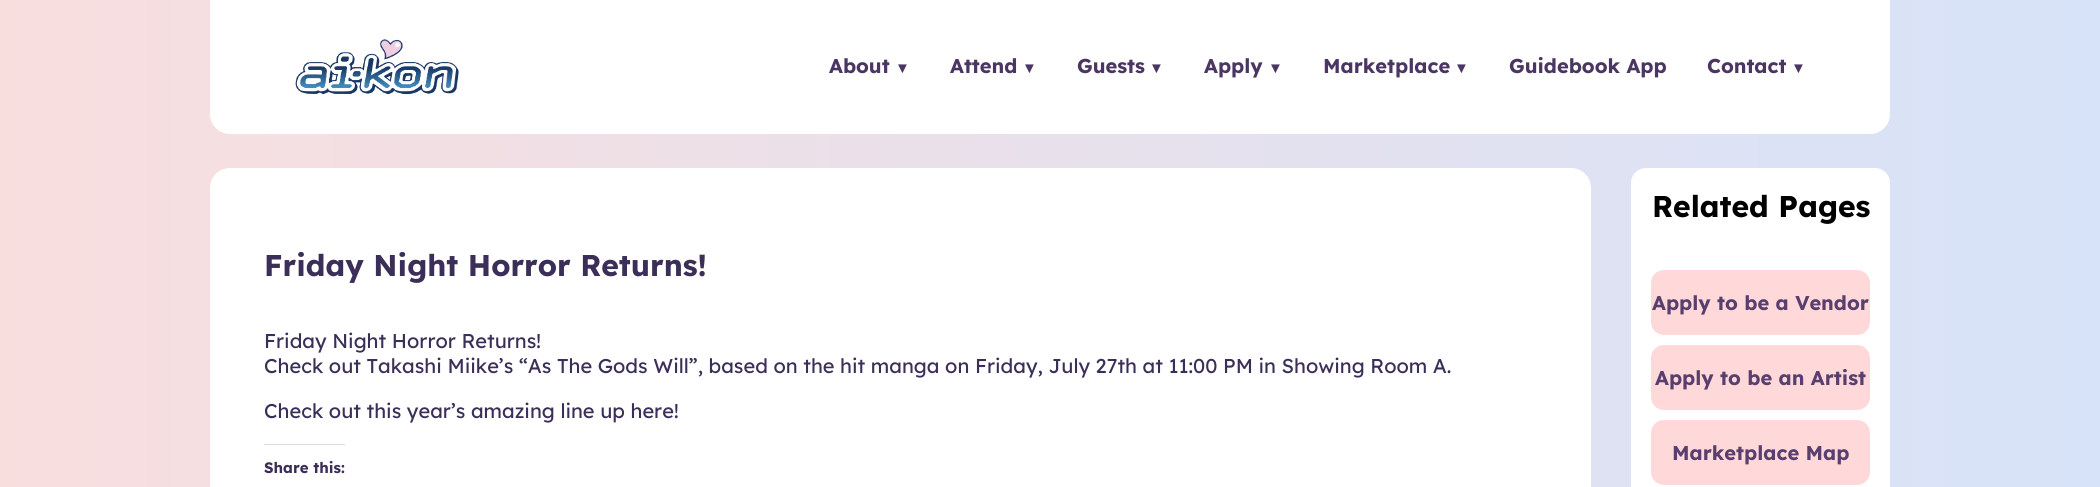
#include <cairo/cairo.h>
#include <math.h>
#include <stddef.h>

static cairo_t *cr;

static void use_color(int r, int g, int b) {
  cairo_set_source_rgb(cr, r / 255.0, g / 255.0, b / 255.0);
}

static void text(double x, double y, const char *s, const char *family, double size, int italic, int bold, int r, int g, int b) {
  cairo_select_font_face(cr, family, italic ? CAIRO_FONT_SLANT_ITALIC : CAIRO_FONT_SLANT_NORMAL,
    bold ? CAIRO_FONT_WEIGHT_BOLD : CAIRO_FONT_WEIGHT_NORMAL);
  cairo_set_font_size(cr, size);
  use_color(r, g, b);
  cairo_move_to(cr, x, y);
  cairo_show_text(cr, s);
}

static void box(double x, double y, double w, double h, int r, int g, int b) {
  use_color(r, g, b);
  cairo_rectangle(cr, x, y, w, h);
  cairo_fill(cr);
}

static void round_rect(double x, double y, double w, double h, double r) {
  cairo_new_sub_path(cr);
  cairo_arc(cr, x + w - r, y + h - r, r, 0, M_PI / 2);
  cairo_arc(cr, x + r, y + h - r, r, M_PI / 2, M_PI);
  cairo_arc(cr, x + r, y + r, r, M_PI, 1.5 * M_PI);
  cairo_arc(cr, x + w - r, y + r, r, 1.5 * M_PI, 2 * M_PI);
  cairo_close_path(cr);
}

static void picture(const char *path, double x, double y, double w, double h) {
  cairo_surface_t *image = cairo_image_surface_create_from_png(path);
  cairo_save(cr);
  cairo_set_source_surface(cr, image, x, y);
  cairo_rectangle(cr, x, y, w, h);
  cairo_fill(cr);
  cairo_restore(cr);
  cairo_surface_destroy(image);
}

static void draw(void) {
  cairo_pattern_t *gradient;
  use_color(255, 255, 255);
  cairo_paint(cr);
  gradient = cairo_pattern_create_linear(0, 244, 2100, 244);
  cairo_pattern_add_color_stop_rgba(gradient, 0, 0.976, 0.871, 0.871, 1);
  cairo_pattern_add_color_stop_rgba(gradient, 1, 0.843, 0.89, 0.976, 1);
  cairo_set_source(cr, gradient);
  cairo_pattern_destroy(gradient);
  cairo_rectangle(cr, 0, 0, 2100, 487);
  cairo_fill(cr);
  use_color(255, 255, 255);
  cairo_new_path(cr);
  cairo_move_to(cr, 210, 0);
  cairo_line_to(cr, 1890, 0);
  cairo_line_to(cr, 1890, 114);
  cairo_curve_to(cr, 1890, 125, 1881, 134, 1870, 134);
  cairo_line_to(cr, 230, 134);
  cairo_curve_to(cr, 219, 134, 210, 125, 210, 114);
  cairo_close_path(cr);
  cairo_fill(cr);
  picture("img_01.png", 295, 39, 164, 56);
  round_rect(210, 168, 1381, 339, 20);
  cairo_fill(cr);
  box(264, 444, 81, 1, 220, 220, 222);
  use_color(255, 255, 255);
  round_rect(1631, 168, 259, 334, 15);
  cairo_fill(cr);
  use_color(255, 217, 217);
  round_rect(1651, 270, 219, 65, 13);
  cairo_fill(cr);
  round_rect(1651, 345, 219, 65, 13);
  cairo_fill(cr);
  round_rect(1651, 420, 219, 65, 13);
  cairo_fill(cr);
  text(829, 73, "About", "Lexend", 20, 0, 1, 75, 54, 99);
  text(895, 73, "▼", "Liberation Sans", 15, 0, 1, 75, 54, 99);
  text(950, 73, "Attend", "Lexend", 20, 0, 1, 75, 54, 99);
  text(1022, 73, "▼", "Liberation Sans", 15, 0, 1, 75, 54, 99);
  text(1077, 73, "Guests", "Lexend", 20, 0, 1, 75, 54, 99);
  text(1149, 73, "▼", "Liberation Sans", 15, 0, 1, 75, 54, 99);
  text(1204, 73, "Apply", "Lexend", 20, 0, 1, 75, 54, 99);
  text(1268, 73, "▼", "Liberation Sans", 15, 0, 1, 75, 54, 99);
  text(1323, 73, "Marketplace", "Lexend", 20, 0, 1, 75, 54, 99);
  text(1454, 73, "▼", "Liberation Sans", 15, 0, 1, 75, 54, 99);
  text(1509, 73, "Guidebook App", "Lexend", 20, 0, 1, 75, 54, 99);
  text(1707, 73, "Contact", "Lexend", 20, 0, 1, 75, 54, 99);
  text(1791, 73, "▼", "Liberation Sans", 15, 0, 1, 75, 54, 99);
  text(264, 276, "Friday Night Horror Returns!", "Lexend", 30, 0, 1, 59, 46, 88);
  text(264, 348, "Friday Night Horror Returns!", "Lexend", 20, 0, 0, 59, 46, 88);
  text(264, 373, "Check out Takashi Miike’s “As The Gods Will”, based on the hit manga on Friday, July 27th at 11:00 PM in Showing Room A.", "Lexend", 20, 0, 0, 59, 46, 88);
  text(264, 418, "Check out this year’s amazing line up here!", "Lexend", 20, 0, 0, 59, 46, 88);
  text(264, 473, "Share this:", "Lexend", 15, 0, 1, 59, 46, 88);
  text(1652, 217, "Related Pages", "Lexend", 30, 0, 1, 0, 0, 0);
  text(1652, 310, "Apply to be a Vendor", "Lexend", 20, 0, 1, 88, 63, 110);
  text(1655, 385, "Apply to be an Artist", "Lexend", 20, 0, 1, 88, 63, 110);
  text(1672, 460, "Marketplace Map", "Lexend", 20, 0, 1, 88, 63, 110);
}

int main(void) {
  cairo_surface_t *surface = cairo_image_surface_create(CAIRO_FORMAT_RGB24, 2100, 487);
  cr = cairo_create(surface);
  cairo_font_options_t *options = cairo_font_options_create();
  cairo_font_options_set_hint_metrics(options, CAIRO_HINT_METRICS_OFF);
  cairo_font_options_set_hint_style(options, CAIRO_HINT_STYLE_NONE);
  cairo_set_font_options(cr, options);
  cairo_set_miter_limit(cr, 4);
  draw();
  cairo_surface_write_to_png(surface, "out.png");
  cairo_font_options_destroy(options);
  cairo_destroy(cr);
  cairo_surface_destroy(surface);
  return 0;
}
